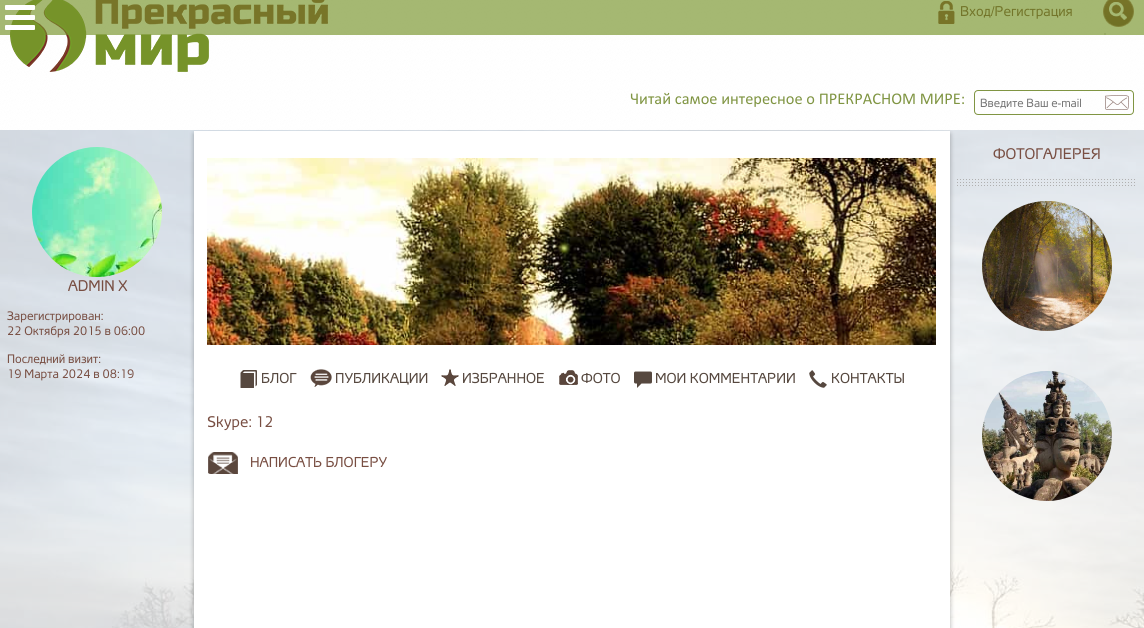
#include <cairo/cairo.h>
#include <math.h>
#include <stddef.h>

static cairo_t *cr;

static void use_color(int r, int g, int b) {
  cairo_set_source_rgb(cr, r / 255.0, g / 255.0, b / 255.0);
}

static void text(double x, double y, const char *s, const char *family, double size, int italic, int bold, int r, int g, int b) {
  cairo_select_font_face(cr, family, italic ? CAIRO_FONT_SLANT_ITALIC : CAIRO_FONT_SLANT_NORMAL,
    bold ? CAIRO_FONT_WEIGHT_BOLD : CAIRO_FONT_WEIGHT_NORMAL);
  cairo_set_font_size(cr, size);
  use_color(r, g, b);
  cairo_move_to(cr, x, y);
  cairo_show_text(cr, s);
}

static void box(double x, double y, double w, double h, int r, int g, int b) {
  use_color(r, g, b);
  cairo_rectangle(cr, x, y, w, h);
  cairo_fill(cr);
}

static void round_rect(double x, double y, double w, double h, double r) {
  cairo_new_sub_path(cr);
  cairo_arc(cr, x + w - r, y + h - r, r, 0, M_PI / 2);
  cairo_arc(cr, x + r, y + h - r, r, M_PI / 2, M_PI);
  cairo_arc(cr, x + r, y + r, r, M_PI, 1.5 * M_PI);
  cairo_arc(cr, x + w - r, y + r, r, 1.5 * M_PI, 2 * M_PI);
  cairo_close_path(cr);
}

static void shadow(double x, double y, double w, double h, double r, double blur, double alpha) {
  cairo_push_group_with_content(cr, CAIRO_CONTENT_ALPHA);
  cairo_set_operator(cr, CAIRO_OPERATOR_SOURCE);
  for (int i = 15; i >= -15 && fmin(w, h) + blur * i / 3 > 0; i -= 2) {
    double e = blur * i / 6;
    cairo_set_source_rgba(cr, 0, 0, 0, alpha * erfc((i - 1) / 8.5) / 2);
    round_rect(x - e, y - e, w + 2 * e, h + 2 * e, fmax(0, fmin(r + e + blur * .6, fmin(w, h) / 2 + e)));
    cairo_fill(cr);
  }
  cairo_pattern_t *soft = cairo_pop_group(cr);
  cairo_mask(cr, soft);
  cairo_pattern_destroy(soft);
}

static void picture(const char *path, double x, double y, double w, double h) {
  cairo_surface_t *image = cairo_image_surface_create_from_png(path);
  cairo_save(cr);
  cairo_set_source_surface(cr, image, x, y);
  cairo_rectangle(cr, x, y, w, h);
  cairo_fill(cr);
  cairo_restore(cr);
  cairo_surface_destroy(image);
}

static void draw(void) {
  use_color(255, 255, 255);
  cairo_paint(cr);
  picture("img_01.png", 0, 0, 1144, 130);
  picture("img_06.png", 0, 130, 1144, 498);
  use_color(0, 0, 0);
  shadow(194, 134, 756, 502, 0, 2.5, 0.3);
  cairo_set_source_rgba(cr, 1, 1, 1, 0.8);
  cairo_rectangle(cr, 0, 0, 1144, 130);
  cairo_fill(cr);
  picture("img_02.png", 10, 0, 318, 72);
  picture("img_03.png", 938, 1, 17, 23);
  box(1104, 33, 2, 2, 217, 217, 217);
  cairo_new_path(cr);
  cairo_move_to(cr, 1118, -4.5);
  cairo_line_to(cr, 1117.5, -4.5);
  cairo_line_to(cr, 1117.5, 25.5);
  cairo_line_to(cr, 1118, 25.5);
  cairo_curve_to(cr, 1111.5, 25.5, 1106.5, 20.5, 1106.5, 14);
  cairo_line_to(cr, 1106.5, 7);
  cairo_curve_to(cr, 1106.5, 0.5, 1111.5, -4.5, 1118, -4.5);
  cairo_close_path(cr);
  use_color(120, 78, 66);
  cairo_set_line_width(cr, 1);
  cairo_stroke(cr);
  picture("img_04.png", 1103, 0, 31, 27);
  round_rect(974.5, 90.5, 159, 24, 3.5);
  use_color(128, 149, 67);
  cairo_stroke(cr);
  picture("img_05.png", 1105, 95, 24, 15);
  picture("img_07.png", 957, 179, 178, 7);
  picture("img_08.png", 982, 201, 130, 130);
  picture("img_09.png", 982, 371, 130, 130);
  picture("img_10.png", 32, 147, 130, 130);
  box(194, 131, 756, 497, 255, 255, 255);
  picture("img_11.png", 207, 158, 729, 187);
  picture("img_12.png", 240, 370, 17, 18);
  picture("img_13.png", 310, 369, 22, 18);
  picture("img_14.png", 441, 369, 18, 17);
  picture("img_15.png", 559, 370, 19, 15);
  picture("img_16.png", 634, 371, 18, 17);
  picture("img_17.png", 809, 370, 18, 18);
  picture("img_18.png", 208, 452, 30, 22);
  text(960, 16, "Вход/Регистрация", "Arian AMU", 13.75, 0, 0, 108, 60, 44);
  cairo_set_source_rgba(cr, 0.463, 0.576, 0.161, 0.66);
  cairo_rectangle(cr, 0, 0, 1144, 35);
  cairo_fill(cr);
  use_color(255, 255, 255);
  round_rect(5, 25, 30, 5, 1);
  cairo_fill(cr);
  round_rect(5, 15, 30, 5, 1);
  cairo_fill(cr);
  round_rect(5, 5, 30, 5, 1);
  cairo_fill(cr);
  text(630, 104, "Читай самое интересное о ПРЕКРАСНОМ МИРЕ:", "Calibri", 16.4, 0, 0, 128, 149, 67);
  text(980, 107, "Введите Ваш e-mail", "Arian AMU", 11.5, 0, 0, 117, 117, 117);
  text(993, 159, "ФОТОГАЛЕРЕЯ", "Arian AMU", 15, 0, 0, 120, 78, 66);
  text(68, 291, "ADMIN X", "Arian AMU", 15, 0, 0, 120, 78, 66);
  text(7, 320, "Зарегистрирован:", "Arian AMU", 12, 0, 0, 120, 78, 66);
  text(7, 335, "22 Октября 2015 в 06:00", "Arian AMU", 12, 0, 0, 120, 78, 66);
  text(7, 363, "Последний визит:", "Arian AMU", 12, 0, 0, 120, 78, 66);
  text(7, 378, "19 Марта 2024 в 08:19", "Arian AMU", 12, 0, 0, 120, 78, 66);
  text(261, 383, "БЛОГ", "Arian AMU", 14, 0, 0, 86, 72, 63);
  text(335, 383, "ПУБЛИКАЦИИ", "Arian AMU", 14, 0, 0, 86, 72, 63);
  text(462, 383, "ИЗБРАННОЕ", "Arian AMU", 14, 0, 0, 86, 72, 63);
  text(581, 383, "ФОТО", "Arian AMU", 14, 0, 0, 86, 72, 63);
  text(655, 383, "МОИ КОММЕНТАРИИ", "Arian AMU", 14, 0, 0, 86, 72, 63);
  text(831, 383, "КОНТАКТЫ", "Arian AMU", 14, 0, 0, 86, 72, 63);
  text(207, 427, "Skype: 12", "Arian AMU", 15, 0, 0, 120, 78, 66);
  text(250, 467, "НАПИСАТЬ БЛОГЕРУ", "Arian AMU", 14, 0, 0, 120, 78, 66);
}

int main(void) {
  cairo_surface_t *surface = cairo_image_surface_create(CAIRO_FORMAT_RGB24, 1144, 628);
  cr = cairo_create(surface);
  cairo_font_options_t *options = cairo_font_options_create();
  cairo_font_options_set_hint_metrics(options, CAIRO_HINT_METRICS_OFF);
  cairo_font_options_set_hint_style(options, CAIRO_HINT_STYLE_NONE);
  cairo_set_font_options(cr, options);
  cairo_set_miter_limit(cr, 4);
  draw();
  cairo_surface_write_to_png(surface, "out.png");
  cairo_font_options_destroy(options);
  cairo_destroy(cr);
  cairo_surface_destroy(surface);
  return 0;
}
